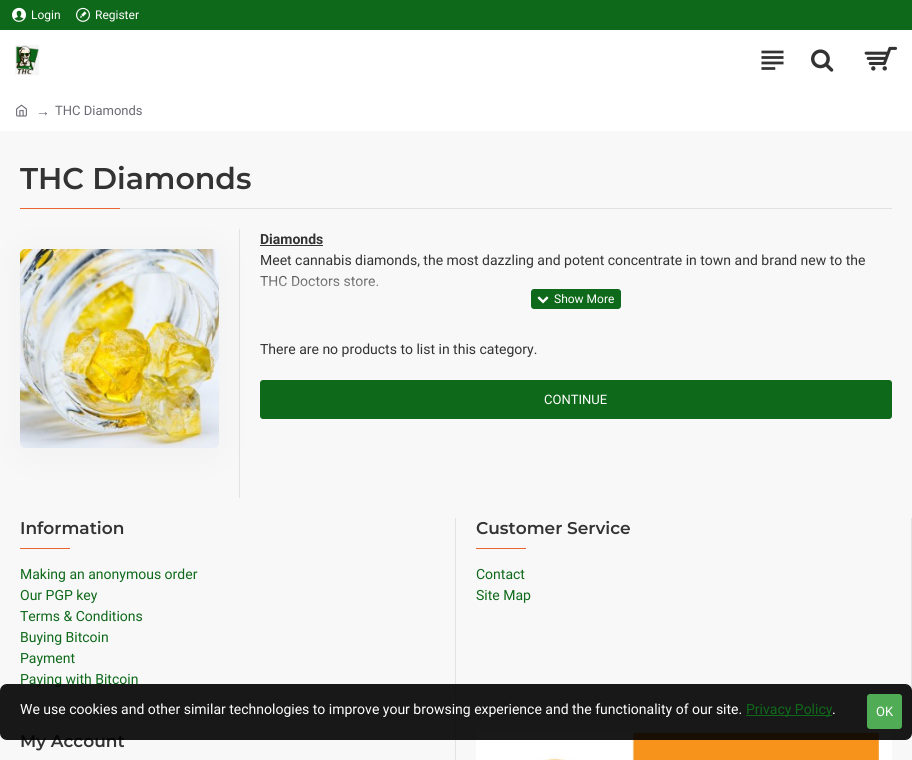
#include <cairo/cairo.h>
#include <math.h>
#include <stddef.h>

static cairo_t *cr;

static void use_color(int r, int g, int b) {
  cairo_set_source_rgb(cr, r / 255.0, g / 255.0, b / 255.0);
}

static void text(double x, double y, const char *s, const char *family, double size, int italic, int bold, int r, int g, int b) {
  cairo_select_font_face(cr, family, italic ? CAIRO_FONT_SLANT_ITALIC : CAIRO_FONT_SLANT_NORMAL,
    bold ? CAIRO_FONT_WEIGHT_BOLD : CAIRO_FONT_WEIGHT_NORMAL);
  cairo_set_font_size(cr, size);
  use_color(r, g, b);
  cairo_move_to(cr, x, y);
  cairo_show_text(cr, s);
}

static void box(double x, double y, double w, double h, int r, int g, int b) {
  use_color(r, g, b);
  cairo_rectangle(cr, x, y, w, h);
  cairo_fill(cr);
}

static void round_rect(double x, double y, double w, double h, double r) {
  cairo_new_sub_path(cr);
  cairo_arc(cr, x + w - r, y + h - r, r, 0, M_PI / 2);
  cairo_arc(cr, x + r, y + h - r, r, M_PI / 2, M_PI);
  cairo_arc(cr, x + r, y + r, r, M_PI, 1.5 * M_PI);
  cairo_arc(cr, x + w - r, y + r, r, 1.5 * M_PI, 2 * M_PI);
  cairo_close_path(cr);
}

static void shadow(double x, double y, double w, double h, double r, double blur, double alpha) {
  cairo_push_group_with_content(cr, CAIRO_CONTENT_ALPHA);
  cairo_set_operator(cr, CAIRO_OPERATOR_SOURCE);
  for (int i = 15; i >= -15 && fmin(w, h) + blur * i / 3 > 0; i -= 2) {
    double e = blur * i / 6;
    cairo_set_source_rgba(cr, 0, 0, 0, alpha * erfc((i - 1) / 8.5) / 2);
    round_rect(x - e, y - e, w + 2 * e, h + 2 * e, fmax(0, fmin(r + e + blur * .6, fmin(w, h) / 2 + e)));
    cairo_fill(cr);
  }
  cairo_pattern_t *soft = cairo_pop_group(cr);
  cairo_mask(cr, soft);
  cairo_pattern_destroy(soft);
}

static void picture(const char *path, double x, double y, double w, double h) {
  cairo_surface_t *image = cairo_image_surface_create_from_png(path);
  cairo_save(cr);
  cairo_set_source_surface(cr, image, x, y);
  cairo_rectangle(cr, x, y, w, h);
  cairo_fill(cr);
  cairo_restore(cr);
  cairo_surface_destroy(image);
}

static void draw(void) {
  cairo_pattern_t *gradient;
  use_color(248, 248, 248);
  cairo_paint(cr);
  box(0, 0, 912, 30, 14, 105, 26);
  picture("img_01.png", 12, 7, 14, 15);
  picture("img_02.png", 76, 7, 14, 15);
  box(0, 30, 912, 101, 255, 255, 255);
  picture("img_03.png", 15, 45, 24, 30);
  picture("img_04.png", 761, 50, 23, 20);
  picture("img_05.png", 811, 49, 23, 23);
  picture("img_06.png", 864, 46, 34, 25);
  picture("img_07.png", 16, 104, 11, 13);
  box(120, 208, 772, 1, 226, 226, 226);
  box(20, 208, 100, 1, 233, 102, 49);
  box(239, 229, 1, 269, 226, 226, 226);
  use_color(0, 0, 0);
  shadow(30, 264, 179, 179, 0, 25, 0.05);
  picture("img_08.png", 20, 249, 199, 199);
  box(260, 245, 63, 1, 51, 51, 51);
  use_color(14, 105, 26);
  round_rect(531, 289, 90, 20, 3);
  cairo_fill(cr);
  picture("img_09.png", 537, 296, 12, 8);
  round_rect(260, 380, 632, 39, 3);
  cairo_fill(cr);
  box(455, 518, 1, 242, 226, 226, 226);
  box(20, 548, 50, 1, 233, 102, 49);
  box(911, 518, 1, 213, 226, 226, 226);
  box(476, 548, 50, 1, 233, 102, 49);
  picture("img_10.png", 476, 731, 416, 29);
  text(31, 19, "Login", "Roboto", 12, 0, 0, 255, 255, 255);
  text(95, 19, "Register", "Roboto", 12, 0, 0, 255, 255, 255);
  text(36, 116, "→", "Liberation Serif", 14, 0, 0, 105, 105, 115);
  text(55, 115, "THC Diamonds", "Roboto", 13, 0, 0, 105, 105, 115);
  text(20, 189, "THC Diamonds", "Montserrat SemiBold", 30, 0, 0, 51, 51, 51);
  text(260, 244, "Diamonds", "Roboto", 14, 0, 1, 51, 51, 51);
  text(260, 265, "Meet cannabis diamonds, the most dazzling and potent concentrate in town and brand new to the", "Roboto", 14, 0, 0, 51, 51, 51);
  text(260, 286, "THC Doctors store.", "Roboto", 14, 0, 0, 51, 51, 51);
  gradient = cairo_pattern_create_linear(576, 269, 576, 309);
  cairo_pattern_add_color_stop_rgba(gradient, 0, 0.973, 0.973, 0.973, 0);
  cairo_pattern_add_color_stop_rgba(gradient, 1, 0.973, 0.973, 0.973, 1);
  cairo_set_source(cr, gradient);
  cairo_pattern_destroy(gradient);
  cairo_rectangle(cr, 260, 276, 118, 11);
  cairo_fill(cr);
  text(554, 303, "Show More", "Roboto", 12, 0, 0, 255, 255, 255);
  text(260, 354, "There are no products to list in this category.", "Roboto", 14, 0, 0, 51, 51, 51);
  text(544, 404, "CONTINUE", "Roboto", 13, 0, 0, 255, 255, 255);
  text(20, 534, "Information", "Montserrat SemiBold", 17, 0, 0, 51, 51, 51);
  text(20, 579, "Making an anonymous order", "Roboto", 14, 0, 0, 14, 105, 26);
  text(20, 600, "Our PGP key", "Roboto", 14, 0, 0, 14, 105, 26);
  text(20, 621, "Terms & Conditions", "Roboto", 14, 0, 0, 14, 105, 26);
  text(20, 642, "Buying Bitcoin", "Roboto", 14, 0, 0, 14, 105, 26);
  text(20, 663, "Payment", "Roboto", 14, 0, 0, 14, 105, 26);
  text(20, 684, "Paying with Bitcoin", "Roboto", 14, 0, 0, 14, 105, 26);
  text(476, 534, "Customer Service", "Montserrat SemiBold", 17, 0, 0, 51, 51, 51);
  text(476, 579, "Contact", "Roboto", 14, 0, 0, 14, 105, 26);
  text(476, 600, "Site Map", "Roboto", 14, 0, 0, 14, 105, 26);
  text(20, 747, "My Account", "Montserrat SemiBold", 17, 0, 0, 51, 51, 51);
  cairo_set_source_rgba(cr, 0, 0, 0, 0.9);
  round_rect(0, 684, 912, 56, 7);
  cairo_fill(cr);
  text(20, 714, "We use cookies and other similar technologies to improve your browsing experience and the functionality of our site.", "Roboto", 14, 0, 0, 255, 255, 255);
  box(746, 715, 86, 1, 14, 105, 26);
  text(746, 714, "Privacy Policy", "Roboto", 14, 0, 0, 14, 105, 26);
  text(832, 714, ".", "Roboto", 14, 0, 0, 255, 255, 255);
  use_color(80, 173, 85);
  round_rect(867, 694, 35, 35, 3);
  cairo_fill(cr);
  text(876, 716, "OK", "Roboto", 13, 0, 0, 255, 255, 255);
}

int main(void) {
  cairo_surface_t *surface = cairo_image_surface_create(CAIRO_FORMAT_RGB24, 912, 760);
  cr = cairo_create(surface);
  cairo_font_options_t *options = cairo_font_options_create();
  cairo_font_options_set_hint_metrics(options, CAIRO_HINT_METRICS_OFF);
  cairo_font_options_set_hint_style(options, CAIRO_HINT_STYLE_NONE);
  cairo_set_font_options(cr, options);
  cairo_set_miter_limit(cr, 4);
  draw();
  cairo_surface_write_to_png(surface, "out.png");
  cairo_font_options_destroy(options);
  cairo_destroy(cr);
  cairo_surface_destroy(surface);
  return 0;
}
